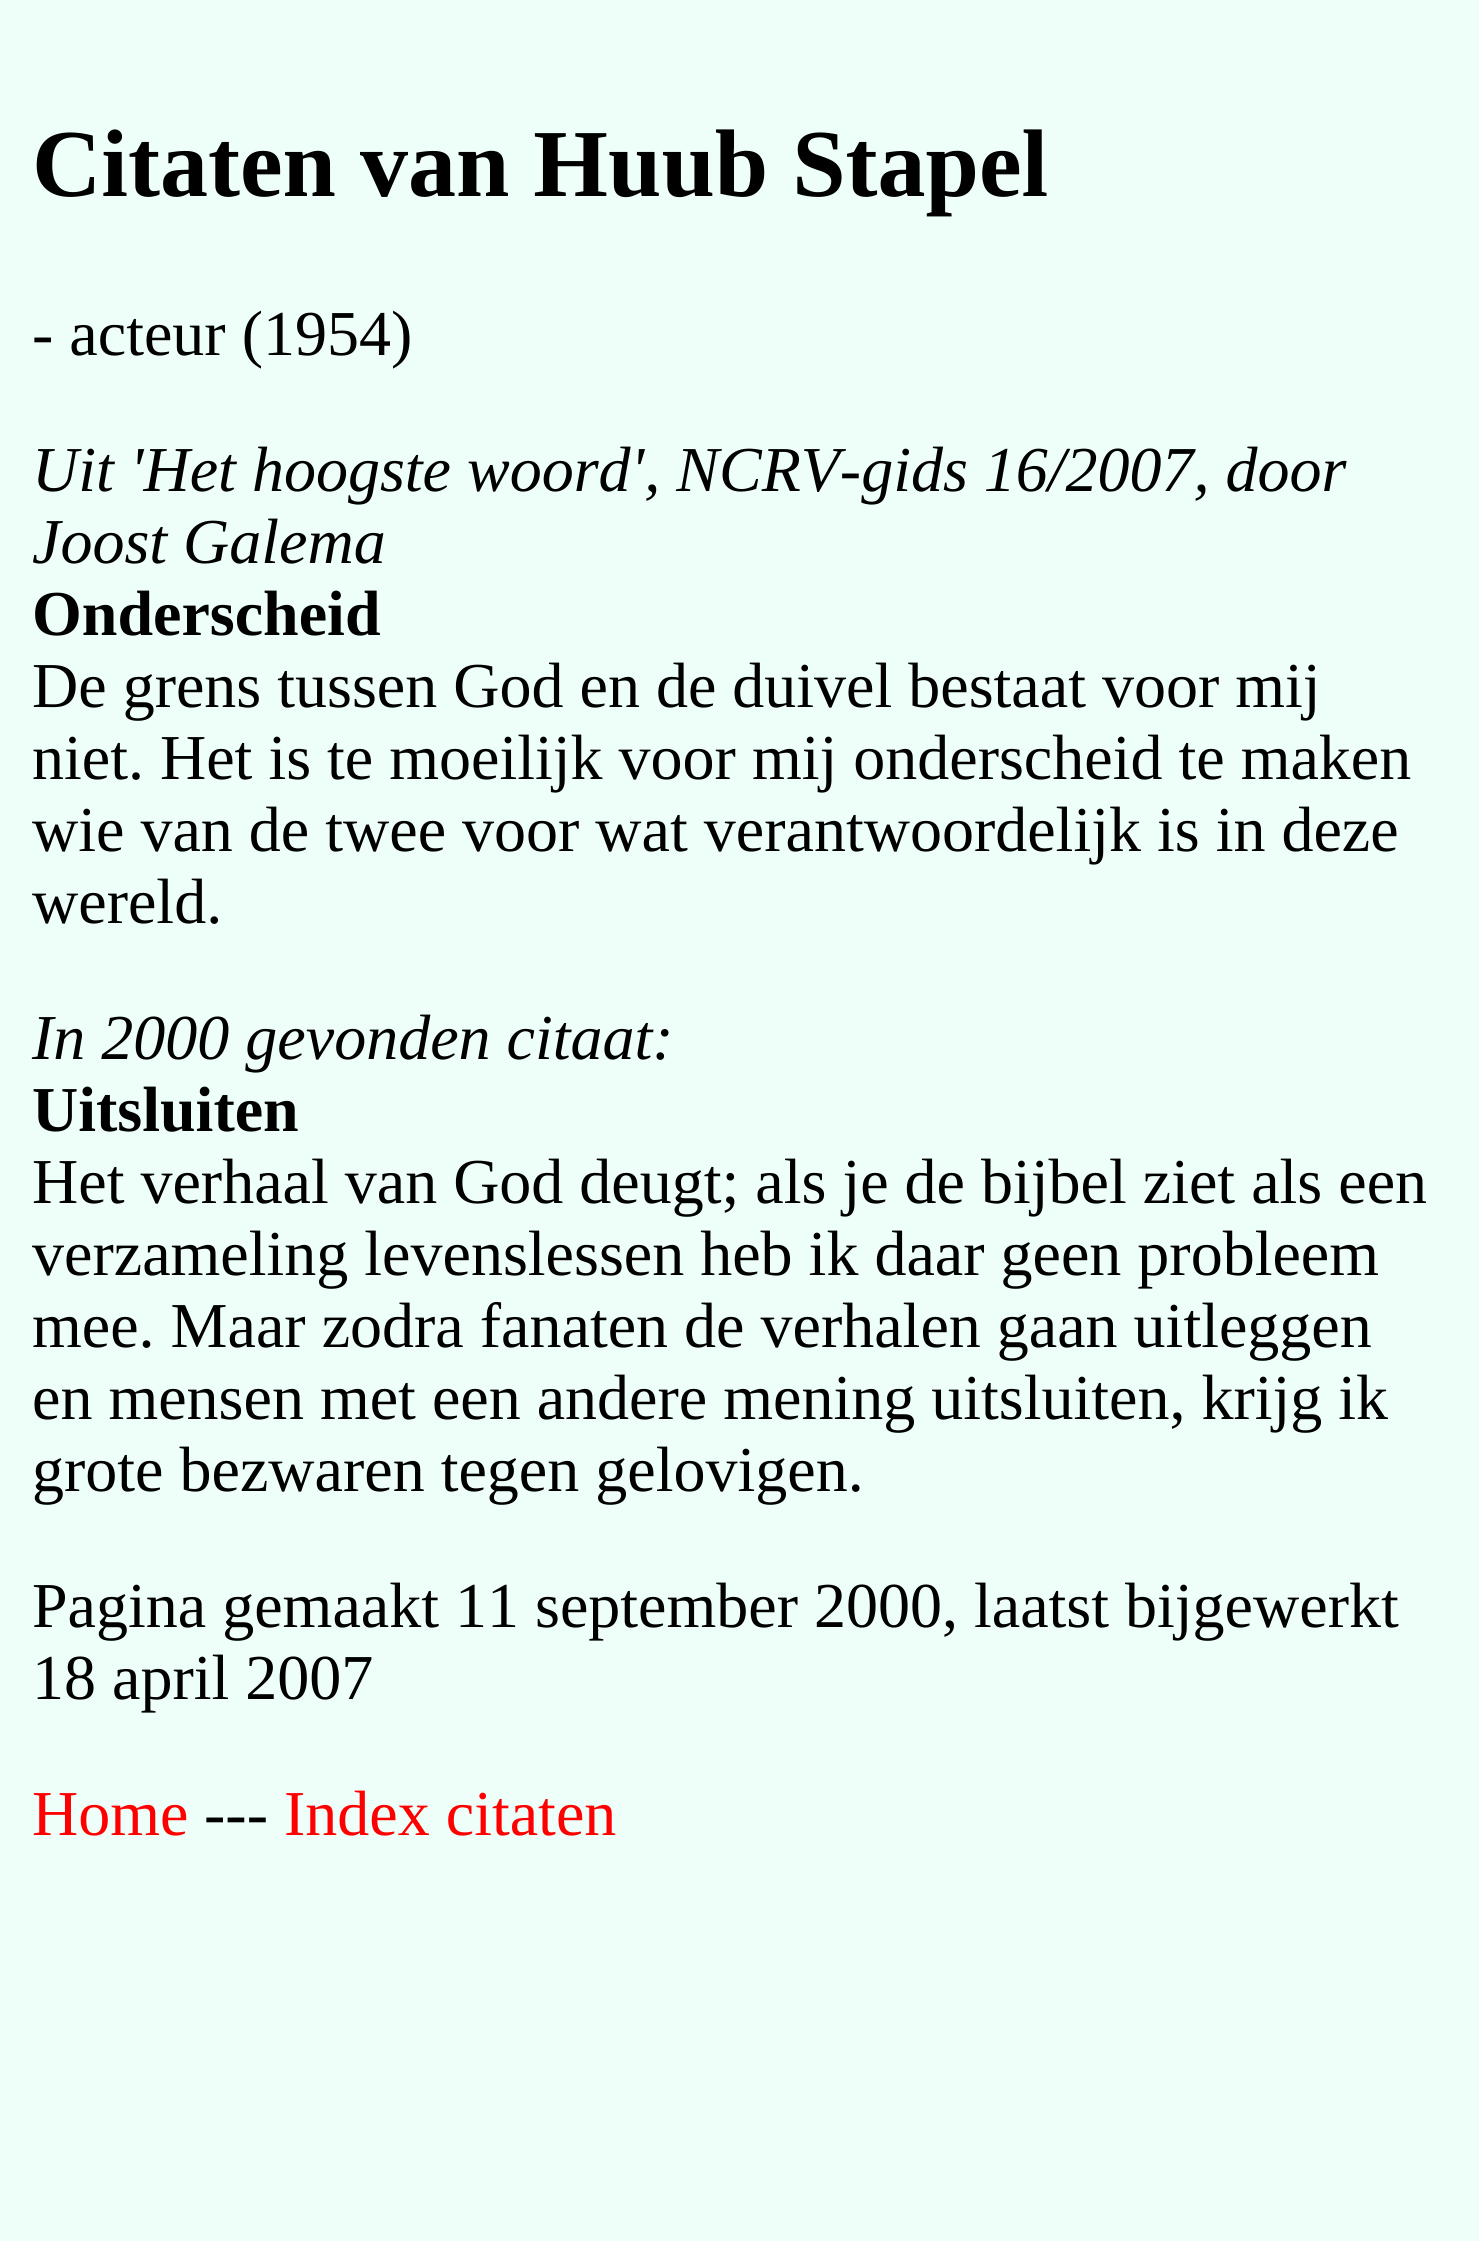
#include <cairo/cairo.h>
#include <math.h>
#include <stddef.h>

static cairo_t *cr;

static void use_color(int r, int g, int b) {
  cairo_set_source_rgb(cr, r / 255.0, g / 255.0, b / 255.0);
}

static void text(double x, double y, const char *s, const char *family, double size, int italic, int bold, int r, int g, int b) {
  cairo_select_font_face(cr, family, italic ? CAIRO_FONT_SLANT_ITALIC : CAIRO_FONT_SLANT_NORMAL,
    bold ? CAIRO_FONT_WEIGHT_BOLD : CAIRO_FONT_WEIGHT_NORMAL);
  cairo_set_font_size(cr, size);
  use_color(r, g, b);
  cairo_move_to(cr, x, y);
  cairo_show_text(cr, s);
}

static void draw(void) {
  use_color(238, 255, 250);
  cairo_paint(cr);
  text(32, 196, "Citaten van Huub Stapel", "Liberation Serif", 96, 0, 1, 0, 0, 0);
  text(32, 355, "- acteur (1954)", "Liberation Serif", 64, 0, 0, 0, 0, 0);
  text(32, 491, "Uit 'Het hoogste woord', NCRV-gids 16/2007, door", "Liberation Serif", 64, 1, 0, 0, 0, 0);
  text(32, 563, "Joost Galema", "Liberation Serif", 64, 1, 0, 0, 0, 0);
  text(32, 635, "Onderscheid", "Liberation Serif", 64, 0, 1, 0, 0, 0);
  text(32, 707, "De grens tussen God en de duivel bestaat voor mij", "Liberation Serif", 64, 0, 0, 0, 0, 0);
  text(32, 779, "niet. Het is te moeilijk voor mij onderscheid te maken", "Liberation Serif", 64, 0, 0, 0, 0, 0);
  text(32, 851, "wie van de twee voor wat verantwoordelijk is in deze", "Liberation Serif", 64, 0, 0, 0, 0, 0);
  text(32, 923, "wereld.", "Liberation Serif", 64, 0, 0, 0, 0, 0);
  text(32, 1059, "In 2000 gevonden citaat:", "Liberation Serif", 64, 1, 0, 0, 0, 0);
  text(32, 1131, "Uitsluiten", "Liberation Serif", 64, 0, 1, 0, 0, 0);
  text(32, 1203, "Het verhaal van God deugt; als je de bijbel ziet als een", "Liberation Serif", 64, 0, 0, 0, 0, 0);
  text(32, 1275, "verzameling levenslessen heb ik daar geen probleem", "Liberation Serif", 64, 0, 0, 0, 0, 0);
  text(32, 1347, "mee. Maar zodra fanaten de verhalen gaan uitleggen", "Liberation Serif", 64, 0, 0, 0, 0, 0);
  text(32, 1419, "en mensen met een andere mening uitsluiten, krijg ik", "Liberation Serif", 64, 0, 0, 0, 0, 0);
  text(32, 1491, "grote bezwaren tegen gelovigen.", "Liberation Serif", 64, 0, 0, 0, 0, 0);
  text(32, 1627, "Pagina gemaakt 11 september 2000, laatst bijgewerkt", "Liberation Serif", 64, 0, 0, 0, 0, 0);
  text(32, 1699, "18 april 2007", "Liberation Serif", 64, 0, 0, 0, 0, 0);
  text(32, 1835, "Home", "Liberation Serif", 64, 0, 0, 255, 0, 0);
  text(204, 1835, "---", "Liberation Serif", 64, 0, 0, 0, 0, 0);
  text(284, 1835, "Index citaten", "Liberation Serif", 64, 0, 0, 255, 0, 0);
}

int main(void) {
  cairo_surface_t *surface = cairo_image_surface_create(CAIRO_FORMAT_RGB24, 1479, 2241);
  cr = cairo_create(surface);
  cairo_font_options_t *options = cairo_font_options_create();
  cairo_font_options_set_hint_metrics(options, CAIRO_HINT_METRICS_OFF);
  cairo_font_options_set_hint_style(options, CAIRO_HINT_STYLE_NONE);
  cairo_set_font_options(cr, options);
  cairo_set_miter_limit(cr, 4);
  draw();
  cairo_surface_write_to_png(surface, "out.png");
  cairo_font_options_destroy(options);
  cairo_destroy(cr);
  cairo_surface_destroy(surface);
  return 0;
}
